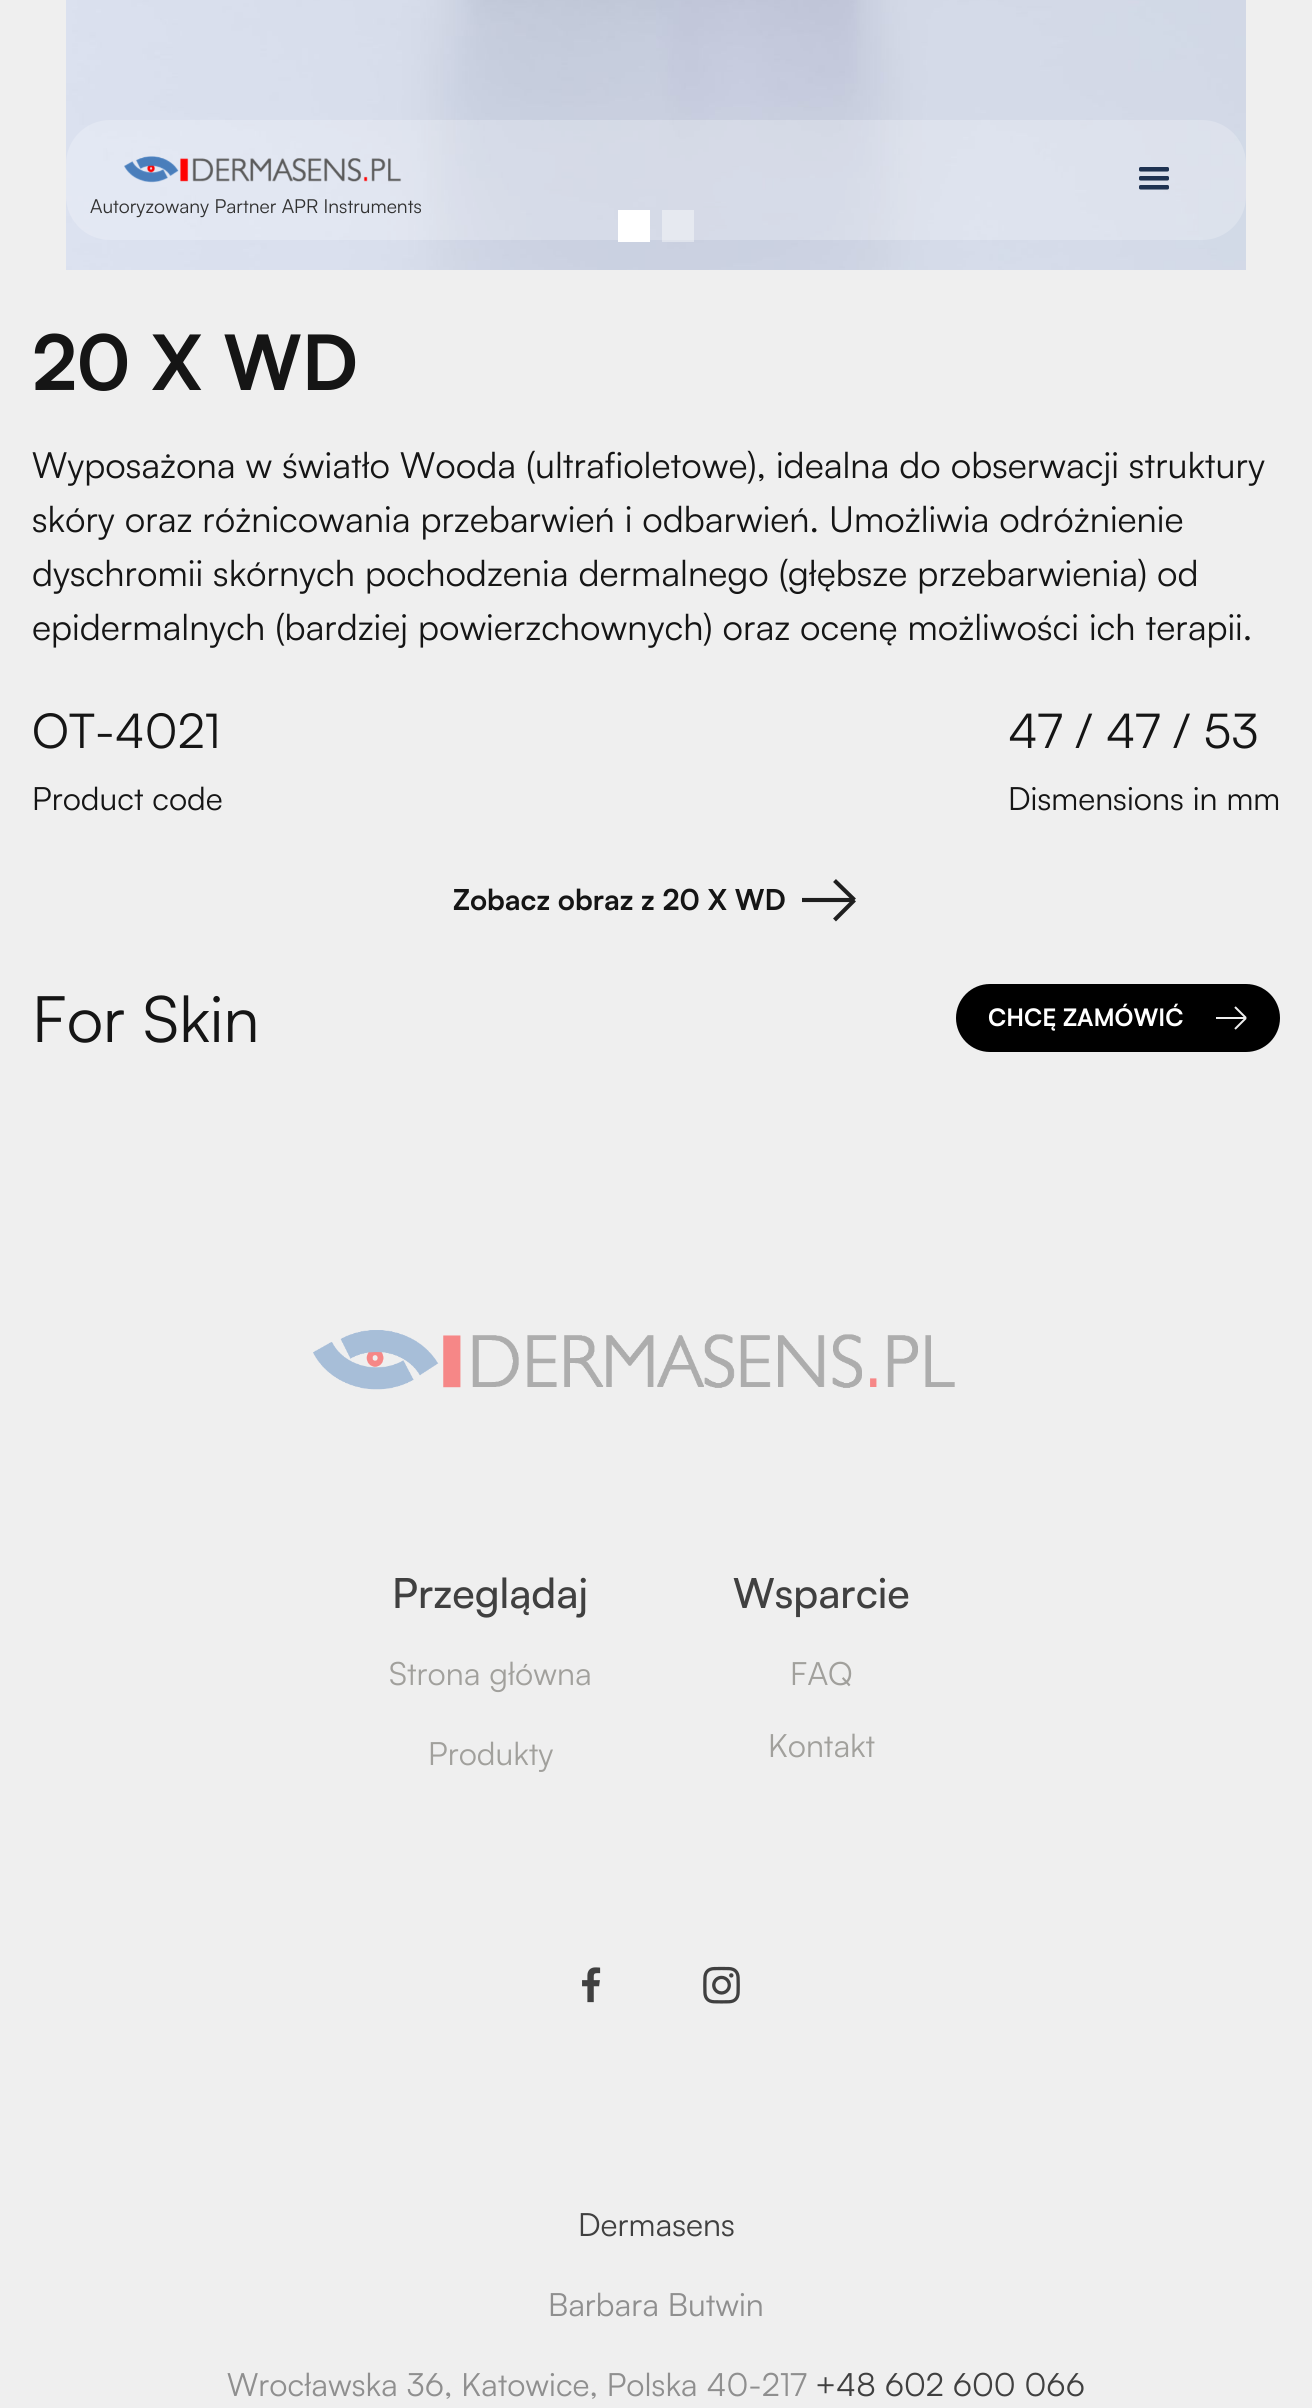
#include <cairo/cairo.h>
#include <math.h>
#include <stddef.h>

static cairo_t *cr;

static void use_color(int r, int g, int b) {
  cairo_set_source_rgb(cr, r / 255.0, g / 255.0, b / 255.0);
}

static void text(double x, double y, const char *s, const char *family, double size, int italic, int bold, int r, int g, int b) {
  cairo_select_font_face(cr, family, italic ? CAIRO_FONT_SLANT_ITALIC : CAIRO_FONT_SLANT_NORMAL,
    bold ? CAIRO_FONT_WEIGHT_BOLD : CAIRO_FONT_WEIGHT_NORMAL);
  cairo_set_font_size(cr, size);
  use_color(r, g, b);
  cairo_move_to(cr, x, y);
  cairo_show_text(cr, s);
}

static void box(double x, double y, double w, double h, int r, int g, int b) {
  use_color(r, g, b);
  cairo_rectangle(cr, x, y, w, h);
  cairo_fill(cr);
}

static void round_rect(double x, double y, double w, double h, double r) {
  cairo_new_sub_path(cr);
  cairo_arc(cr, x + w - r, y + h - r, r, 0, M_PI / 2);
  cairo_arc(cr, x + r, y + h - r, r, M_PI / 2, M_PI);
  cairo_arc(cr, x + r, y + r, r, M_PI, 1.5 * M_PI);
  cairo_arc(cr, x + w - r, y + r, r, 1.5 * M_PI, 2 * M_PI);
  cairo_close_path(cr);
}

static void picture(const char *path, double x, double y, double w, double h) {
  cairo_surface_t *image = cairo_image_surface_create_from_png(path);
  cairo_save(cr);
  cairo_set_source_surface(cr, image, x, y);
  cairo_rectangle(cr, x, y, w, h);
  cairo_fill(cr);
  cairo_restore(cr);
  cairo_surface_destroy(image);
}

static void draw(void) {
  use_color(239, 239, 239);
  cairo_paint(cr);
  picture("img_03.png", 66, 0, 1180, 270);
  box(618, 210, 32, 32, 255, 255, 255);
  box(662, 210, 32, 32, 223, 227, 236);
  cairo_set_source_rgba(cr, 1, 1, 1, 0.22);
  round_rect(66, 120, 1180, 120, 44);
  cairo_fill(cr);
  picture("img_01.png", 1139, 167, 30, 23);
  picture("img_02.png", 124, 156, 278, 27);
  cairo_new_path(cr);
  cairo_move_to(cr, 834.5, 880.5);
  cairo_line_to(cr, 854.5, 900);
  cairo_move_to(cr, 854.5, 900);
  cairo_line_to(cr, 834.5, 920);
  cairo_move_to(cr, 854.5, 900);
  cairo_line_to(cr, 802, 900);
  use_color(31, 31, 31);
  cairo_set_line_width(cr, 4.1);
  cairo_stroke(cr);
  use_color(0, 0, 0);
  round_rect(956, 984, 324, 68, 34);
  cairo_fill(cr);
  cairo_new_path(cr);
  cairo_move_to(cr, 1235, 1007);
  cairo_line_to(cr, 1246, 1018);
  cairo_move_to(cr, 1246, 1018);
  cairo_line_to(cr, 1235, 1029);
  cairo_move_to(cr, 1246, 1018);
  cairo_line_to(cr, 1216, 1018);
  use_color(239, 239, 239);
  cairo_set_line_width(cr, 2);
  cairo_stroke(cr);
  picture("img_04.png", 313, 1330, 642, 60);
  picture("img_05.png", 582, 1967, 19, 36);
  picture("img_06.png", 703, 1966, 37, 38);
  text(90, 213, "Autoryzowany Partner APR Instruments", "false", 19.25, 0, 0, 49, 49, 49);
  text(32, 390, "20 X WD", "false", 76, 0, 1, 21, 21, 21);
  text(32, 478, "Wyposażona w światło Wooda (ultrafioletowe), idealna do obserwacji struktury", "false", 36, 0, 0, 21, 21, 21);
  text(32, 532, "skóry oraz różnicowania przebarwień i odbarwień. Umożliwia odróżnienie", "false", 36, 0, 0, 21, 21, 21);
  text(32, 586, "dyschromii skórnych pochodzenia dermalnego (głębsze przebarwienia) od", "false", 36, 0, 0, 21, 21, 21);
  text(32, 640, "epidermalnych (bardziej powierzchownych) oraz ocenę możliwości ich terapii.", "false", 36, 0, 0, 21, 21, 21);
  text(32, 748, "OT-4021", "false", 48, 0, 0, 21, 21, 21);
  text(32, 810, "Product code", "false", 32, 0, 0, 21, 21, 21);
  text(1008, 748, "47 / 47 / 53", "false", 48, 0, 0, 21, 21, 21);
  text(1008, 810, "Dismensions in mm", "false", 32, 0, 0, 21, 21, 21);
  text(453, 910, "Zobacz obraz z 20 X WD", "false", 28.75, 0, 1, 21, 21, 21);
  text(32, 1042, "For Skin", "false", 64, 0, 0, 21, 21, 21);
  text(988, 1026, "CHCĘ ZAMÓWIĆ", "false", 24, 0, 1, 255, 255, 255);
  text(392, 1608, "Przeglądaj", "Satoshi Medium", 41.5, 0, 0, 64, 64, 64);
  text(389, 1685, "Strona główna", "false", 32, 0, 0, 161, 160, 156);
  text(428, 1765, "Produkty", "false", 32, 0, 0, 161, 160, 156);
  text(733, 1608, "Wsparcie", "Satoshi Medium", 41.5, 0, 0, 64, 64, 64);
  text(790, 1685, "FAQ", "false", 32, 0, 0, 161, 160, 156);
  text(768, 1757, "Kontakt", "false", 32, 0, 0, 161, 160, 156);
  text(578, 2236, "Dermasens", "false", 32, 0, 0, 64, 64, 64);
  text(548, 2316, "Barbara Butwin", "false", 32, 0, 0, 143, 143, 143);
  text(227, 2396, "Wrocławska 36, Katowice, Polska 40-217", "false", 32, 0, 0, 143, 143, 143);
  text(815, 2396, "+48 602 600 066", "false", 32, 0, 0, 64, 64, 64);
}

int main(void) {
  cairo_surface_t *surface = cairo_image_surface_create(CAIRO_FORMAT_RGB24, 1312, 2408);
  cr = cairo_create(surface);
  cairo_font_options_t *options = cairo_font_options_create();
  cairo_font_options_set_hint_metrics(options, CAIRO_HINT_METRICS_OFF);
  cairo_font_options_set_hint_style(options, CAIRO_HINT_STYLE_NONE);
  cairo_set_font_options(cr, options);
  cairo_set_miter_limit(cr, 4);
  draw();
  cairo_surface_write_to_png(surface, "out.png");
  cairo_font_options_destroy(options);
  cairo_destroy(cr);
  cairo_surface_destroy(surface);
  return 0;
}
